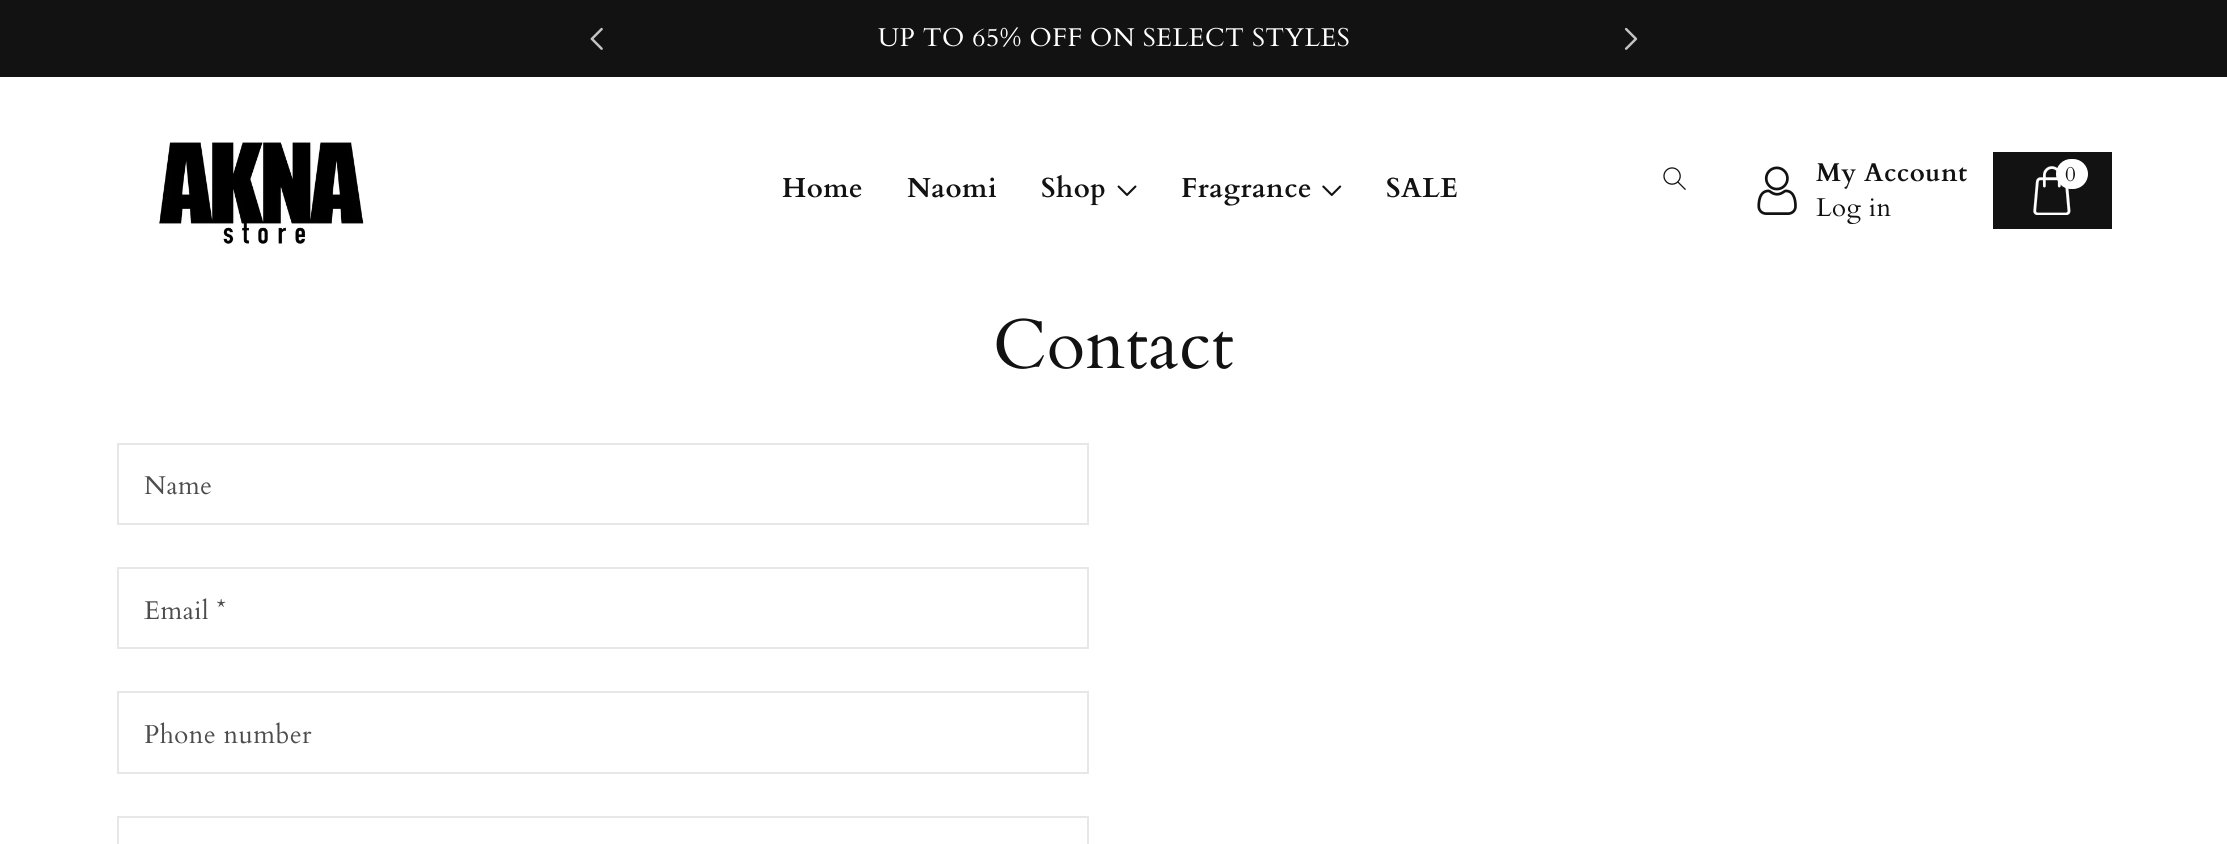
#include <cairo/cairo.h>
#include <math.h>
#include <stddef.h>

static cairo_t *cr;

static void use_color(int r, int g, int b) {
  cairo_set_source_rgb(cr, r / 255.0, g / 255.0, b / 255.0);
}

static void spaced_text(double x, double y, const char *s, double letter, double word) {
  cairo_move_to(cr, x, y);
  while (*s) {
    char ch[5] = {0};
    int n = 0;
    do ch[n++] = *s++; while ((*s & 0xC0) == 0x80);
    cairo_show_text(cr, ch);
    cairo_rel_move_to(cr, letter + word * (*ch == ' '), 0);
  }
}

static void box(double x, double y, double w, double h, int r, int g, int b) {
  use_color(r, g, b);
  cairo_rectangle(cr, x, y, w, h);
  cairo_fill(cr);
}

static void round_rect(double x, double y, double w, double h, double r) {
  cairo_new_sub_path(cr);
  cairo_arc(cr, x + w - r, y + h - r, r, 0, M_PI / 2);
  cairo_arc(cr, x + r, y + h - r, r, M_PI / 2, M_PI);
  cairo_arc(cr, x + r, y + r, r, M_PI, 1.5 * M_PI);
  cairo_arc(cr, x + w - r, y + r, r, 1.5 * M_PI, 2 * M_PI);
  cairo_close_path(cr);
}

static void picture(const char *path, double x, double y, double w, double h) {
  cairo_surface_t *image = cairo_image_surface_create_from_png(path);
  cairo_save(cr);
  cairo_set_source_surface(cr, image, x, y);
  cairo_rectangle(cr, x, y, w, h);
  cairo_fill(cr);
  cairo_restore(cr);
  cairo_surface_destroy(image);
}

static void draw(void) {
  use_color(255, 255, 255);
  cairo_paint(cr);
  box(0, 0, 2227, 77, 18, 18, 18);
  picture("img_01.png", 590, 27, 13, 23);
  picture("img_02.png", 1624, 27, 14, 23);
  picture("img_03.png", 159, 142, 205, 102);
  picture("img_04.png", 1117, 185, 20, 11);
  picture("img_05.png", 1322, 185, 20, 11);
  picture("img_06.png", 1663, 167, 23, 23);
  picture("img_07.png", 1757, 166, 40, 49);
  box(1993, 152, 119, 77, 18, 18, 18);
  picture("img_08.png", 2033, 166, 38, 49);
  use_color(255, 255, 255);
  round_rect(2056, 159, 32, 30, 15);
  cairo_fill(cr);
  cairo_rectangle(cr, 118, 444, 970, 80);
  use_color(231, 231, 231);
  cairo_stroke(cr);
  cairo_rectangle(cr, 118, 568, 970, 80);
  cairo_stroke(cr);
  cairo_rectangle(cr, 118, 692, 970, 81);
  cairo_stroke(cr);
  cairo_rectangle(cr, 118, 817, 970, 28);
  cairo_stroke(cr);
  cairo_select_font_face(cr, "Cardo", CAIRO_FONT_SLANT_NORMAL, CAIRO_FONT_WEIGHT_NORMAL);
  cairo_set_font_size(cr, 25.75);
  use_color(255, 255, 255);
  spaced_text(878, 46, "UP TO 65% OFF ON SELECT STYLES", 0.5, 0);
  cairo_select_font_face(cr, "Cardo", CAIRO_FONT_SLANT_NORMAL, CAIRO_FONT_WEIGHT_BOLD);
  cairo_set_font_size(cr, 27.5);
  use_color(18, 18, 18);
  spaced_text(782, 197, "Home", 0.5, 0);
  spaced_text(907, 197, "Naomi", 0.5, 0);
  spaced_text(1041, 197, "Shop", 0.5, 0);
  spaced_text(1181, 197, "Fragrance", 0.5, 0);
  spaced_text(1386, 197, "SALE", 0.5, 0);
  cairo_set_font_size(cr, 25.75);
  spaced_text(1816, 181, "My Account", 0.5, 0);
  cairo_select_font_face(cr, "Cardo", CAIRO_FONT_SLANT_NORMAL, CAIRO_FONT_WEIGHT_NORMAL);
  spaced_text(1816, 216, "Log in", 0.5, 0);
  cairo_set_font_size(cr, 21);
  spaced_text(2065, 181, "0", 0.5, 0);
  cairo_set_font_size(cr, 70);
  spaced_text(993, 368, "Contact", 0.5, 0);
  cairo_set_font_size(cr, 25.75);
  use_color(77, 77, 77);
  spaced_text(144, 494, "Name", 0.5, 0);
  spaced_text(144, 619, "Email *", 0.5, 0);
  spaced_text(144, 743, "Phone number", 0.5, 0);
}

int main(void) {
  cairo_surface_t *surface = cairo_image_surface_create(CAIRO_FORMAT_RGB24, 2227, 844);
  cr = cairo_create(surface);
  cairo_font_options_t *options = cairo_font_options_create();
  cairo_font_options_set_hint_metrics(options, CAIRO_HINT_METRICS_OFF);
  cairo_font_options_set_hint_style(options, CAIRO_HINT_STYLE_NONE);
  cairo_set_font_options(cr, options);
  cairo_set_miter_limit(cr, 4);
  draw();
  cairo_surface_write_to_png(surface, "out.png");
  cairo_font_options_destroy(options);
  cairo_destroy(cr);
  cairo_surface_destroy(surface);
  return 0;
}
